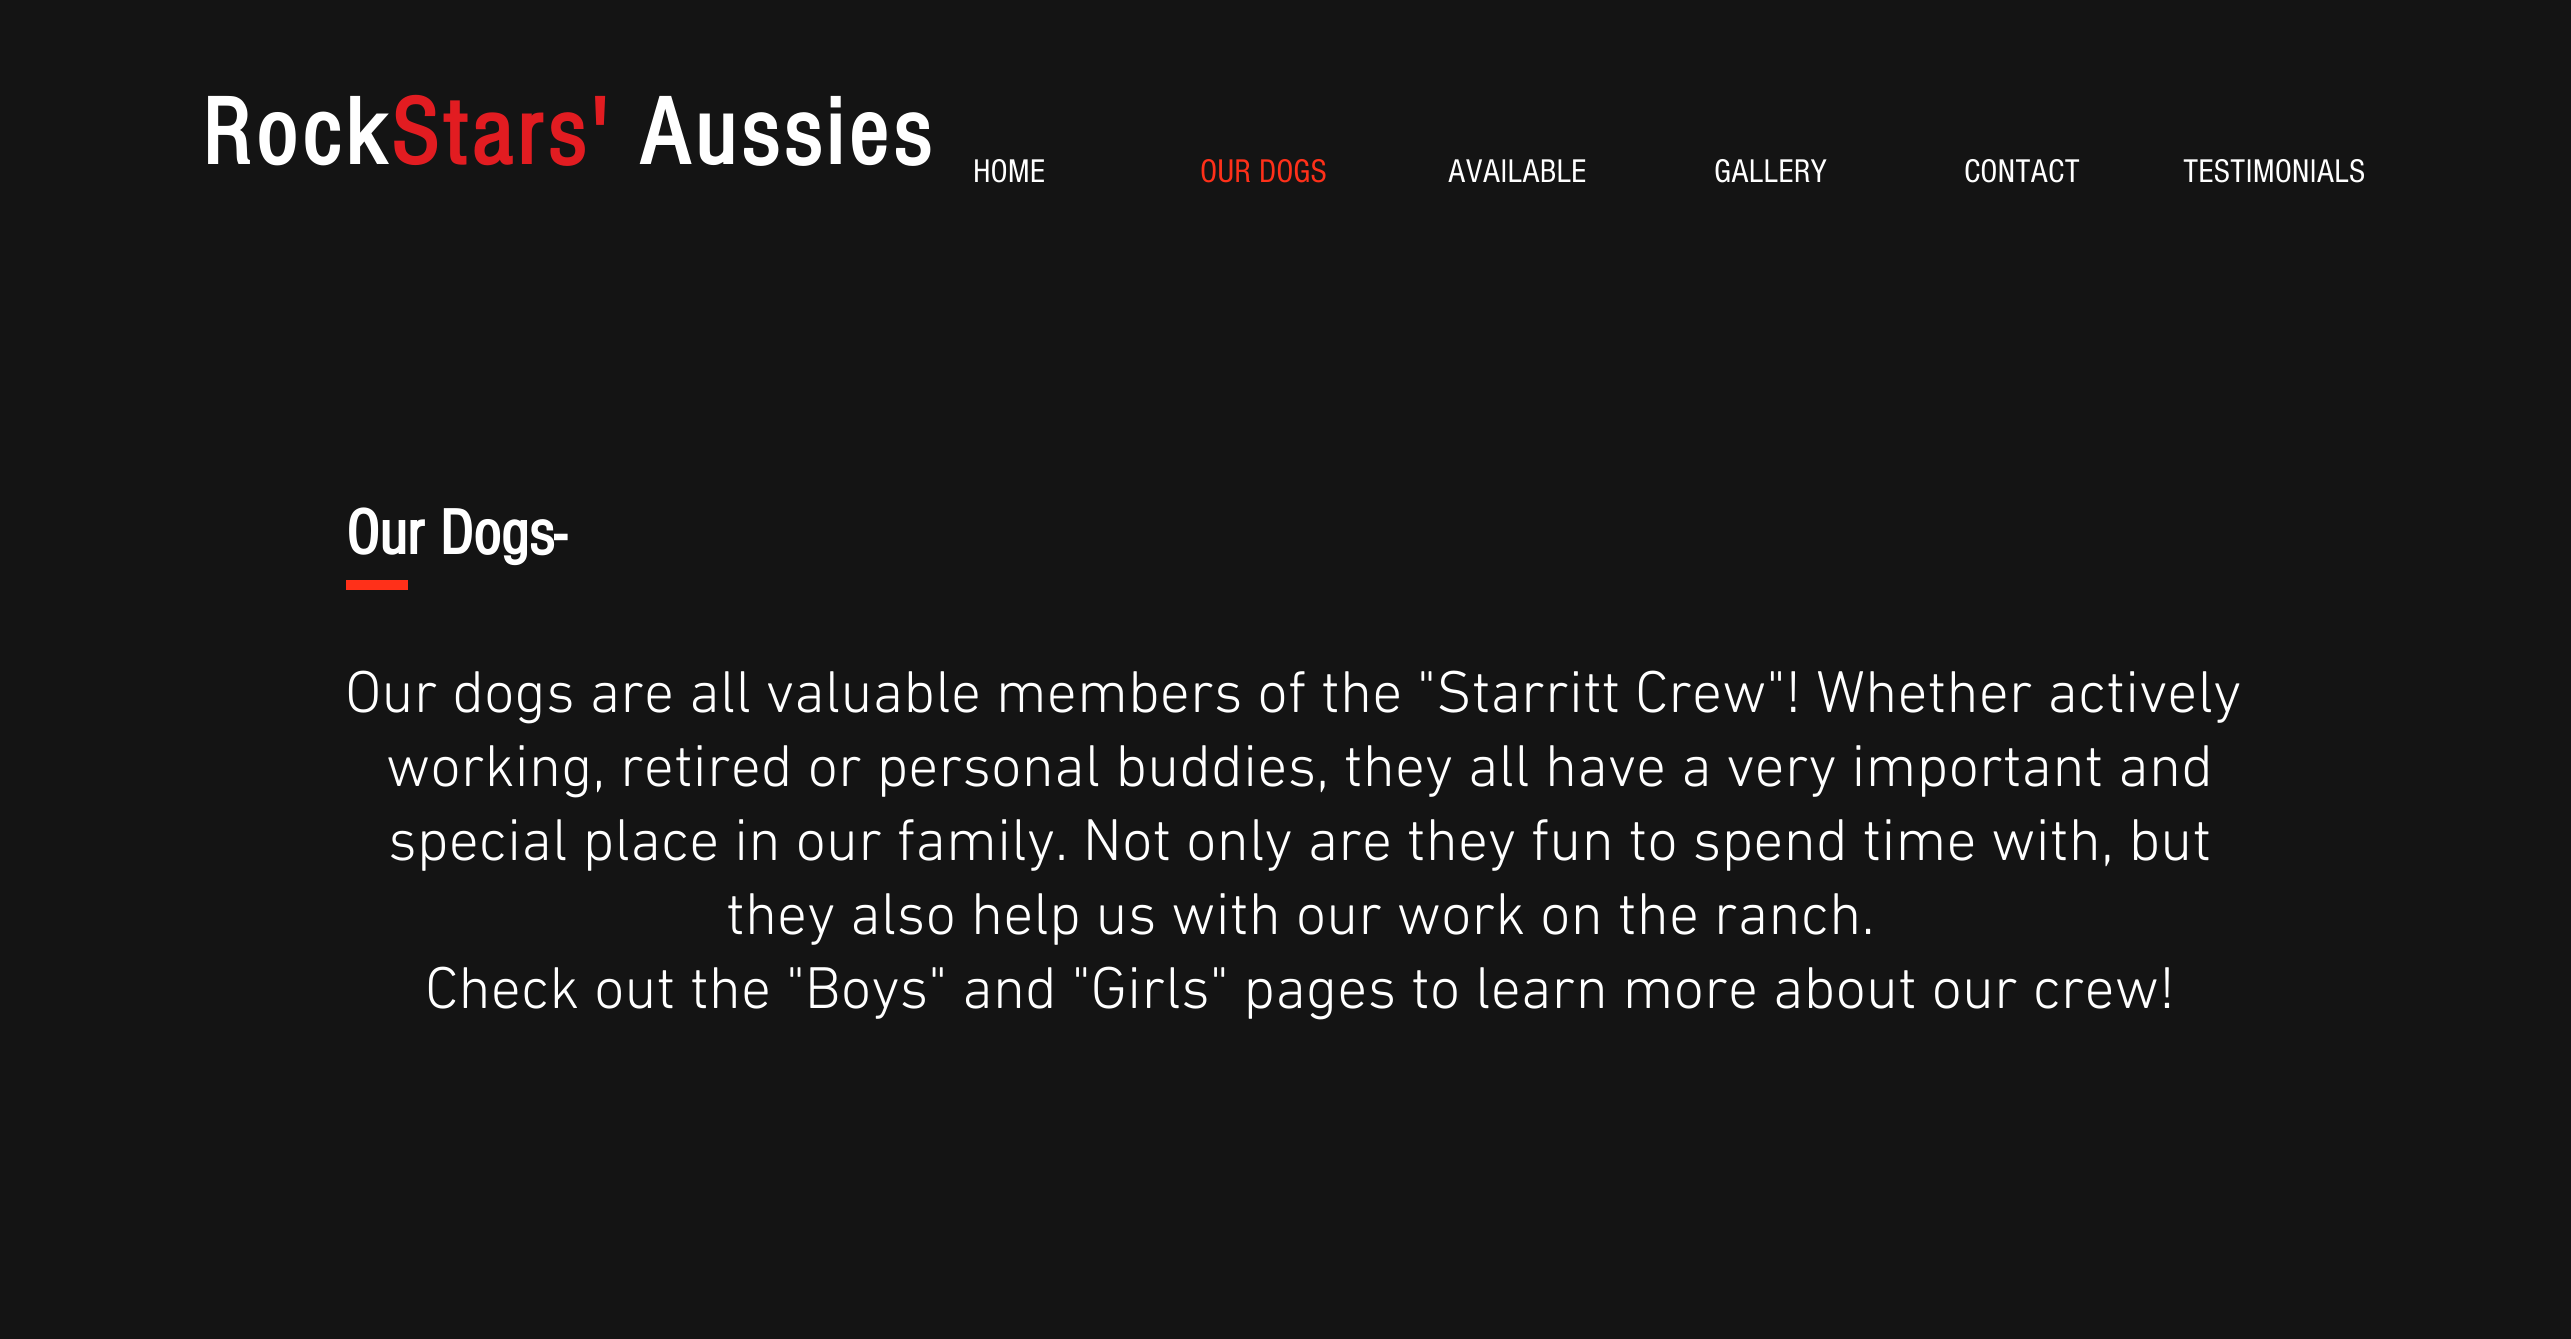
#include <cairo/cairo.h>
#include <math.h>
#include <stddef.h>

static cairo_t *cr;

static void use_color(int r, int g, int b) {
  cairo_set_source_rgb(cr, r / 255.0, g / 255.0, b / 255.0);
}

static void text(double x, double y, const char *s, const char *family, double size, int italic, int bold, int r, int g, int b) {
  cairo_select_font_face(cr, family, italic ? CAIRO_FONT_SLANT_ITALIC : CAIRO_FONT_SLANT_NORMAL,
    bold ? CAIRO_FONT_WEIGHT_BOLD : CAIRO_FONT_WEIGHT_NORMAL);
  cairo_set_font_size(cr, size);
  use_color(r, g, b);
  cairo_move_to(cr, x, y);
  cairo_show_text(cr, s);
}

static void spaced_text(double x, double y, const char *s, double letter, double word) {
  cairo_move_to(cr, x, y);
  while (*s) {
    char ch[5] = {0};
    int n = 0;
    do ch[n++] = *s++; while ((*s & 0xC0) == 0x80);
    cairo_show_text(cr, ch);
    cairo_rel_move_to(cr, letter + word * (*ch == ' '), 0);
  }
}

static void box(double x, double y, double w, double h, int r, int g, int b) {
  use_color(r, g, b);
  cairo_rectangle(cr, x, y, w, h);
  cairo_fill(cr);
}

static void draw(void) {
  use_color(20, 20, 20);
  cairo_paint(cr);
  box(346, 580, 62, 10, 255, 48, 25);
  cairo_select_font_face(cr, "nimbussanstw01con", CAIRO_FONT_SLANT_NORMAL, CAIRO_FONT_WEIGHT_BOLD);
  cairo_set_font_size(cr, 98);
  use_color(255, 255, 255);
  spaced_text(202, 164, "Rock", 5, 0);
  use_color(226, 28, 33);
  spaced_text(391, 164, "Stars'", 5, 0);
  use_color(255, 255, 255);
  spaced_text(639, 164, "Aussies", 5, 0);
  text(973, 182, "HOME", "nimbussanstw01con", 34, 0, 0, 255, 255, 255);
  text(1200, 182, "OUR DOGS", "nimbussanstw01con", 34, 0, 0, 255, 48, 25);
  text(1448, 182, "AVAILABLE", "nimbussanstw01con", 34, 0, 0, 255, 255, 255);
  text(1714, 182, "GALLERY", "nimbussanstw01con", 34, 0, 0, 255, 255, 255);
  text(1964, 182, "CONTACT", "nimbussanstw01con", 34, 0, 0, 255, 255, 255);
  text(2183, 182, "TESTIMONIALS", "nimbussanstw01con", 34, 0, 0, 255, 255, 255);
  text(346, 554, "Our Dogs-", "nimbussanstw01con", 66, 0, 1, 255, 255, 255);
  text(345, 712, "Our dogs are all valuable members of the \"Starritt Crew\"! Whether actively", "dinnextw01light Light", 60, 0, 0, 255, 255, 255);
  text(386, 786, "working, retired or personal buddies, they all have a very important and", "dinnextw01light Light", 60, 0, 0, 255, 255, 255);
  text(388, 860, "special place in our family. Not only are they fun to spend time with, but", "dinnextw01light Light", 60, 0, 0, 255, 255, 255);
  text(726, 934, "they also help us with our work on the ranch.", "dinnextw01light Light", 60, 0, 0, 255, 255, 255);
  text(425, 1008, "Check out the \"Boys\" and \"Girls\" pages to learn more about our crew!", "dinnextw01light Light", 60, 0, 0, 255, 255, 255);
}

int main(void) {
  cairo_surface_t *surface = cairo_image_surface_create(CAIRO_FORMAT_RGB24, 2571, 1339);
  cr = cairo_create(surface);
  cairo_font_options_t *options = cairo_font_options_create();
  cairo_font_options_set_hint_metrics(options, CAIRO_HINT_METRICS_OFF);
  cairo_font_options_set_hint_style(options, CAIRO_HINT_STYLE_NONE);
  cairo_set_font_options(cr, options);
  cairo_set_miter_limit(cr, 4);
  draw();
  cairo_surface_write_to_png(surface, "out.png");
  cairo_font_options_destroy(options);
  cairo_destroy(cr);
  cairo_surface_destroy(surface);
  return 0;
}
